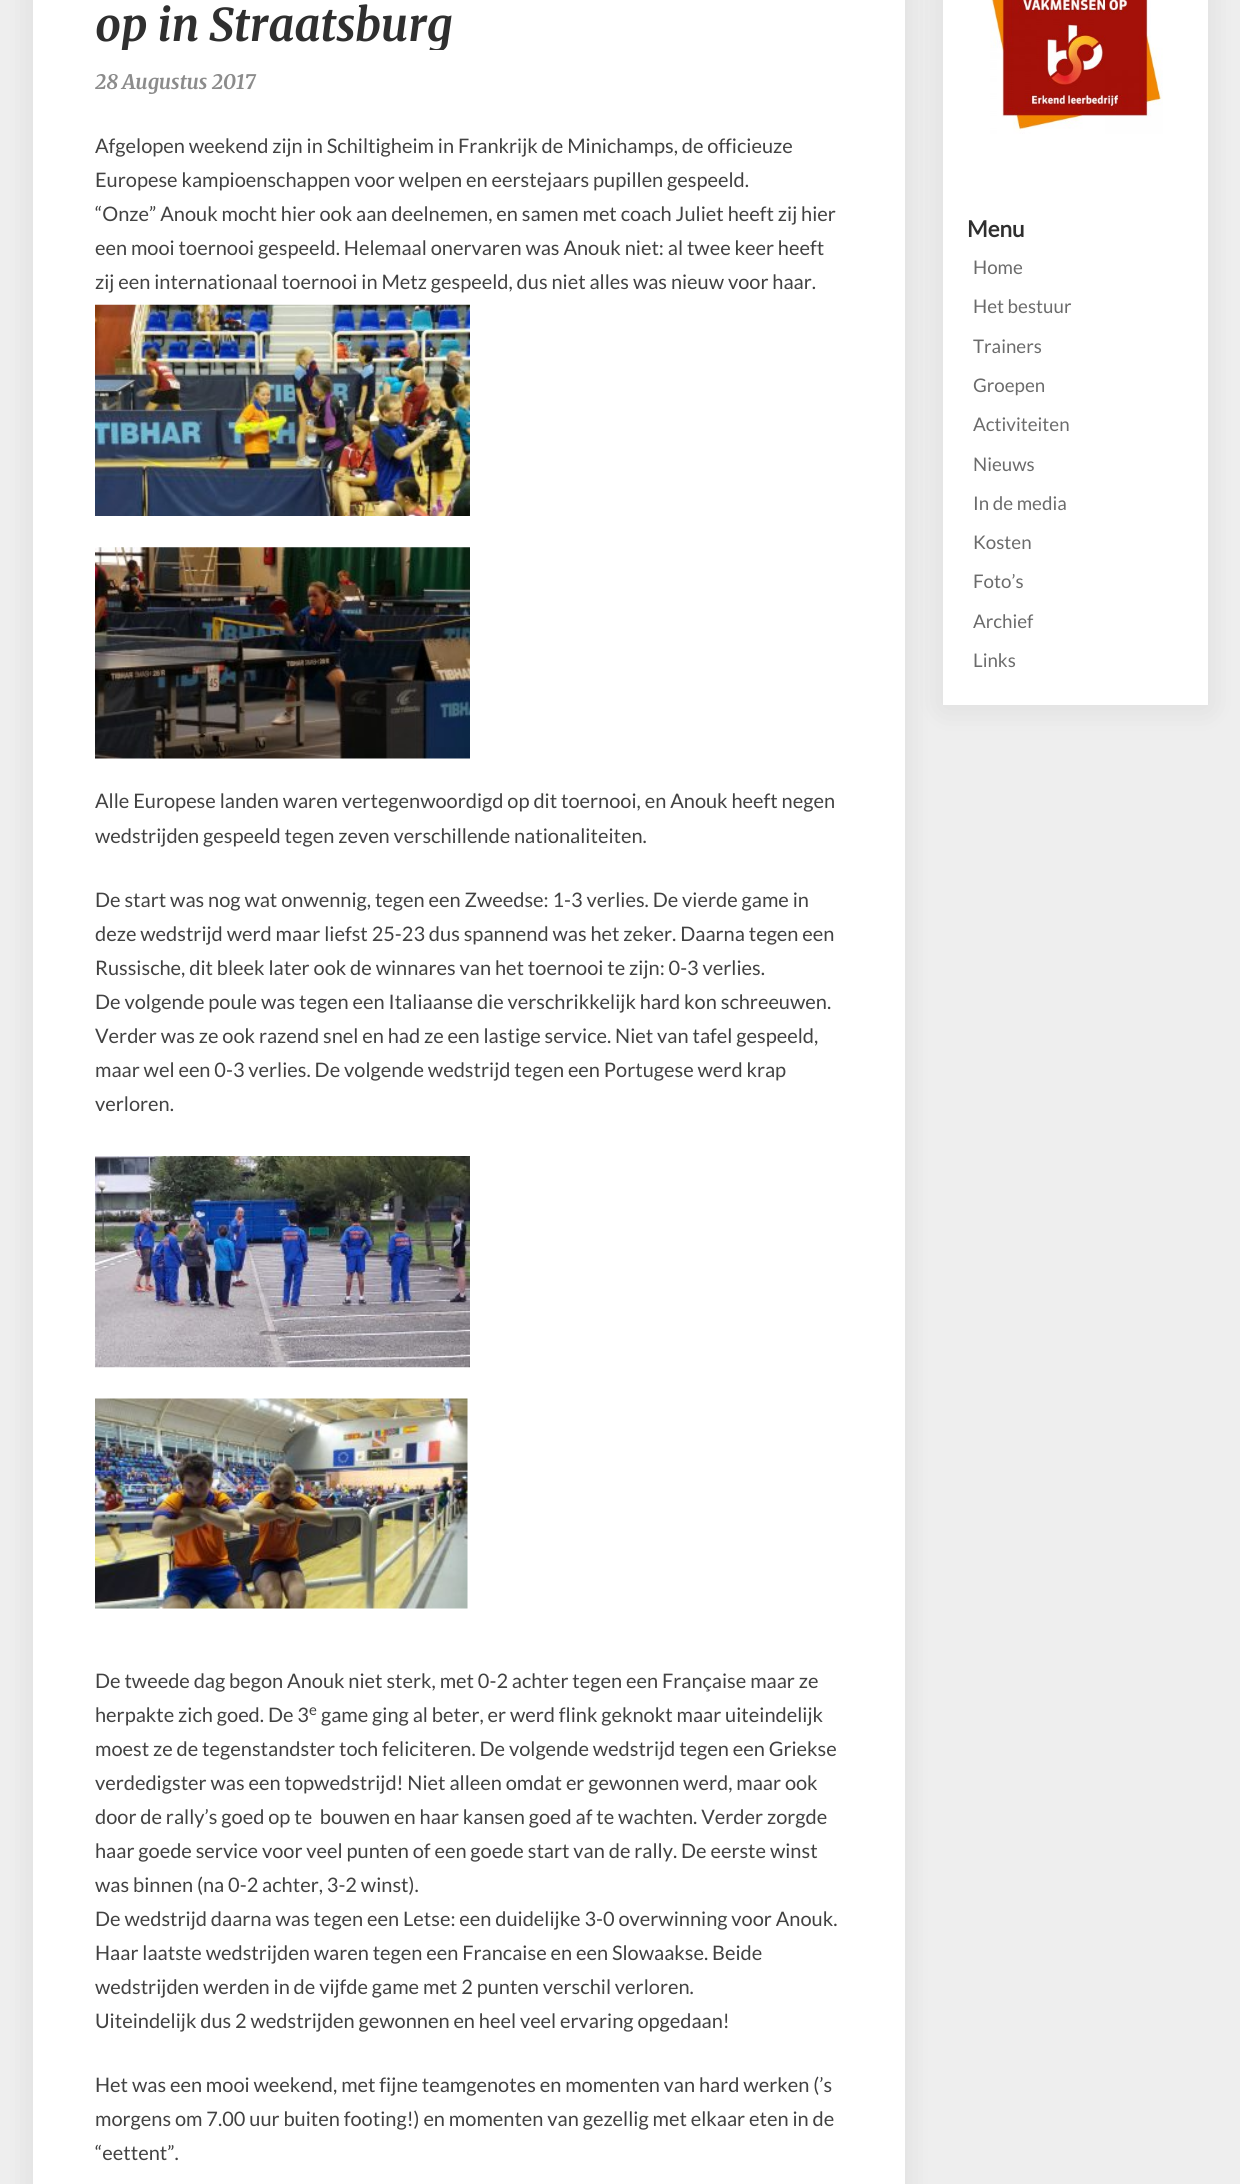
#include <cairo/cairo.h>
#include <math.h>
#include <stddef.h>

static cairo_t *cr;

static void use_color(int r, int g, int b) {
  cairo_set_source_rgb(cr, r / 255.0, g / 255.0, b / 255.0);
}

static void text(double x, double y, const char *s, const char *family, double size, int italic, int bold, int r, int g, int b) {
  cairo_select_font_face(cr, family, italic ? CAIRO_FONT_SLANT_ITALIC : CAIRO_FONT_SLANT_NORMAL,
    bold ? CAIRO_FONT_WEIGHT_BOLD : CAIRO_FONT_WEIGHT_NORMAL);
  cairo_set_font_size(cr, size);
  use_color(r, g, b);
  cairo_move_to(cr, x, y);
  cairo_show_text(cr, s);
}

static void box(double x, double y, double w, double h, int r, int g, int b) {
  use_color(r, g, b);
  cairo_rectangle(cr, x, y, w, h);
  cairo_fill(cr);
}

static void round_rect(double x, double y, double w, double h, double r) {
  cairo_new_sub_path(cr);
  cairo_arc(cr, x + w - r, y + h - r, r, 0, M_PI / 2);
  cairo_arc(cr, x + r, y + h - r, r, M_PI / 2, M_PI);
  cairo_arc(cr, x + r, y + r, r, M_PI, 1.5 * M_PI);
  cairo_arc(cr, x + w - r, y + r, r, 1.5 * M_PI, 2 * M_PI);
  cairo_close_path(cr);
}

static void shadow(double x, double y, double w, double h, double r, double blur, double alpha) {
  cairo_push_group_with_content(cr, CAIRO_CONTENT_ALPHA);
  cairo_set_operator(cr, CAIRO_OPERATOR_SOURCE);
  for (int i = 15; i >= -15 && fmin(w, h) + blur * i / 3 > 0; i -= 2) {
    double e = blur * i / 6;
    cairo_set_source_rgba(cr, 0, 0, 0, alpha * erfc((i - 1) / 8.5) / 2);
    round_rect(x - e, y - e, w + 2 * e, h + 2 * e, fmax(0, fmin(r + e + blur * .6, fmin(w, h) / 2 + e)));
    cairo_fill(cr);
  }
  cairo_pattern_t *soft = cairo_pop_group(cr);
  cairo_mask(cr, soft);
  cairo_pattern_destroy(soft);
}

static void picture(const char *path, double x, double y, double w, double h) {
  cairo_surface_t *image = cairo_image_surface_create_from_png(path);
  cairo_save(cr);
  cairo_set_source_surface(cr, image, x, y);
  cairo_rectangle(cr, x, y, w, h);
  cairo_fill(cr);
  cairo_restore(cr);
  cairo_surface_destroy(image);
}

static void draw(void) {
  use_color(238, 238, 238);
  cairo_paint(cr);
  use_color(0, 0, 0);
  shadow(33, -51, 872, 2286, 4, 15.5, 0.08);
  box(33, 0, 872, 2184, 255, 255, 255);
  picture("img_01.png", 95, 304, 375, 212);
  picture("img_02.png", 95, 547, 375, 212);
  picture("img_03.png", 95, 1156, 375, 212);
  picture("img_04.png", 95, 1398, 373, 211);
  use_color(0, 0, 0);
  shadow(943, -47, 265, 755, 0, 15.5, 0.08);
  box(943, 0, 265, 705, 255, 255, 255);
  picture("img_05.png", 990, 0, 173, 134);
  cairo_save(cr);
  cairo_rectangle(cr, 95, 0, 748, 50);
  cairo_clip(cr);
  text(95, 41, "op in Straatsburg", "Merriweather Light", 45, 1, 0, 47, 47, 47);
  cairo_restore(cr);
  text(95, 89, "28 Augustus 2017", "Merriweather Light", 20, 1, 0, 140, 140, 140);
  text(95, 153, "Afgelopen weekend zijn in Schiltigheim in Frankrijk de Minichamps, de officieuze", "Lato", 20, 0, 0, 66, 66, 66);
  text(95, 187, "Europese kampioenschappen voor welpen en eerstejaars pupillen gespeeld.", "Lato", 20, 0, 0, 66, 66, 66);
  text(95, 221, "“Onze” Anouk mocht hier ook aan deelnemen, en samen met coach Juliet heeft zij hier", "Lato", 20, 0, 0, 66, 66, 66);
  text(95, 255, "een mooi toernooi gespeeld. Helemaal onervaren was Anouk niet: al twee keer heeft", "Lato", 20, 0, 0, 66, 66, 66);
  text(95, 289, "zij een internationaal toernooi in Metz gespeeld, dus niet alles was nieuw voor haar.", "Lato", 20, 0, 0, 66, 66, 66);
  text(95, 808, "Alle Europese landen waren vertegenwoordigd op dit toernooi, en Anouk heeft negen", "Lato", 20, 0, 0, 66, 66, 66);
  text(95, 843, "wedstrijden gespeeld tegen zeven verschillende nationaliteiten.", "Lato", 20, 0, 0, 66, 66, 66);
  text(95, 907, "De start was nog wat onwennig, tegen een Zweedse: 1-3 verlies. De vierde game in", "Lato", 20, 0, 0, 66, 66, 66);
  text(95, 941, "deze wedstrijd werd maar liefst 25-23 dus spannend was het zeker. Daarna tegen een", "Lato", 20, 0, 0, 66, 66, 66);
  text(95, 975, "Russische, dit bleek later ook de winnares van het toernooi te zijn: 0-3 verlies.", "Lato", 20, 0, 0, 66, 66, 66);
  text(95, 1009, "De volgende poule was tegen een Italiaanse die verschrikkelijk hard kon schreeuwen.", "Lato", 20, 0, 0, 66, 66, 66);
  text(95, 1043, "Verder was ze ook razend snel en had ze een lastige service. Niet van tafel gespeeld,", "Lato", 20, 0, 0, 66, 66, 66);
  text(95, 1077, "maar wel een 0-3 verlies. De volgende wedstrijd tegen een Portugese werd krap", "Lato", 20, 0, 0, 66, 66, 66);
  text(95, 1111, "verloren.", "Lato", 20, 0, 0, 66, 66, 66);
  text(95, 1688, "De tweede dag begon Anouk niet sterk, met 0-2 achter tegen een Française maar ze", "Lato", 20, 0, 0, 66, 66, 66);
  text(95, 1722, "herpakte zich goed. De 3", "Lato", 20, 0, 0, 66, 66, 66);
  text(309, 1715, "e", "Lato", 15, 0, 0, 66, 66, 66);
  text(321, 1722, "game ging al beter, er werd flink geknokt maar uiteindelijk", "Lato", 20, 0, 0, 66, 66, 66);
  text(95, 1756, "moest ze de tegenstandster toch feliciteren. De volgende wedstrijd tegen een Griekse", "Lato", 20, 0, 0, 66, 66, 66);
  text(95, 1790, "verdedigster was een topwedstrijd! Niet alleen omdat er gewonnen werd, maar ook", "Lato", 20, 0, 0, 66, 66, 66);
  text(95, 1824, "door de rally’s goed op te  bouwen en haar kansen goed af te wachten. Verder zorgde", "Lato", 20, 0, 0, 66, 66, 66);
  text(95, 1858, "haar goede service voor veel punten of een goede start van de rally. De eerste winst", "Lato", 20, 0, 0, 66, 66, 66);
  text(95, 1892, "was binnen (na 0-2 achter, 3-2 winst).", "Lato", 20, 0, 0, 66, 66, 66);
  text(95, 1926, "De wedstrijd daarna was tegen een Letse: een duidelijke 3-0 overwinning voor Anouk.", "Lato", 20, 0, 0, 66, 66, 66);
  text(95, 1960, "Haar laatste wedstrijden waren tegen een Francaise en een Slowaakse. Beide", "Lato", 20, 0, 0, 66, 66, 66);
  text(95, 1994, "wedstrijden werden in de vijfde game met 2 punten verschil verloren.", "Lato", 20, 0, 0, 66, 66, 66);
  text(95, 2028, "Uiteindelijk dus 2 wedstrijden gewonnen en heel veel ervaring opgedaan!", "Lato", 20, 0, 0, 66, 66, 66);
  text(95, 2092, "Het was een mooi weekend, met fijne teamgenotes en momenten van hard werken (’s", "Lato", 20, 0, 0, 66, 66, 66);
  text(95, 2126, "morgens om 7.00 uur buiten footing!) en momenten van gezellig met elkaar eten in de", "Lato", 20, 0, 0, 66, 66, 66);
  text(95, 2160, "“eettent”.", "Lato", 20, 0, 0, 66, 66, 66);
  text(967, 237, "Menu", "Lato", 22.5, 0, 1, 47, 47, 47);
  text(973, 274, "Home", "Lato", 18.75, 0, 0, 107, 107, 107);
  text(973, 313, "Het bestuur", "Lato", 18.75, 0, 0, 107, 107, 107);
  text(973, 353, "Trainers", "Lato", 18.75, 0, 0, 107, 107, 107);
  text(973, 392, "Groepen", "Lato", 18.75, 0, 0, 107, 107, 107);
  text(973, 431, "Activiteiten", "Lato", 18.75, 0, 0, 107, 107, 107);
  text(973, 471, "Nieuws", "Lato", 18.75, 0, 0, 107, 107, 107);
  text(973, 510, "In de media", "Lato", 18.75, 0, 0, 107, 107, 107);
  text(973, 549, "Kosten", "Lato", 18.75, 0, 0, 107, 107, 107);
  text(973, 588, "Foto’s", "Lato", 18.75, 0, 0, 107, 107, 107);
  text(973, 628, "Archief", "Lato", 18.75, 0, 0, 107, 107, 107);
  text(973, 667, "Links", "Lato", 18.75, 0, 0, 107, 107, 107);
}

int main(void) {
  cairo_surface_t *surface = cairo_image_surface_create(CAIRO_FORMAT_RGB24, 1240, 2184);
  cr = cairo_create(surface);
  cairo_font_options_t *options = cairo_font_options_create();
  cairo_font_options_set_hint_metrics(options, CAIRO_HINT_METRICS_OFF);
  cairo_font_options_set_hint_style(options, CAIRO_HINT_STYLE_NONE);
  cairo_set_font_options(cr, options);
  cairo_set_miter_limit(cr, 4);
  draw();
  cairo_surface_write_to_png(surface, "out.png");
  cairo_font_options_destroy(options);
  cairo_destroy(cr);
  cairo_surface_destroy(surface);
  return 0;
}
